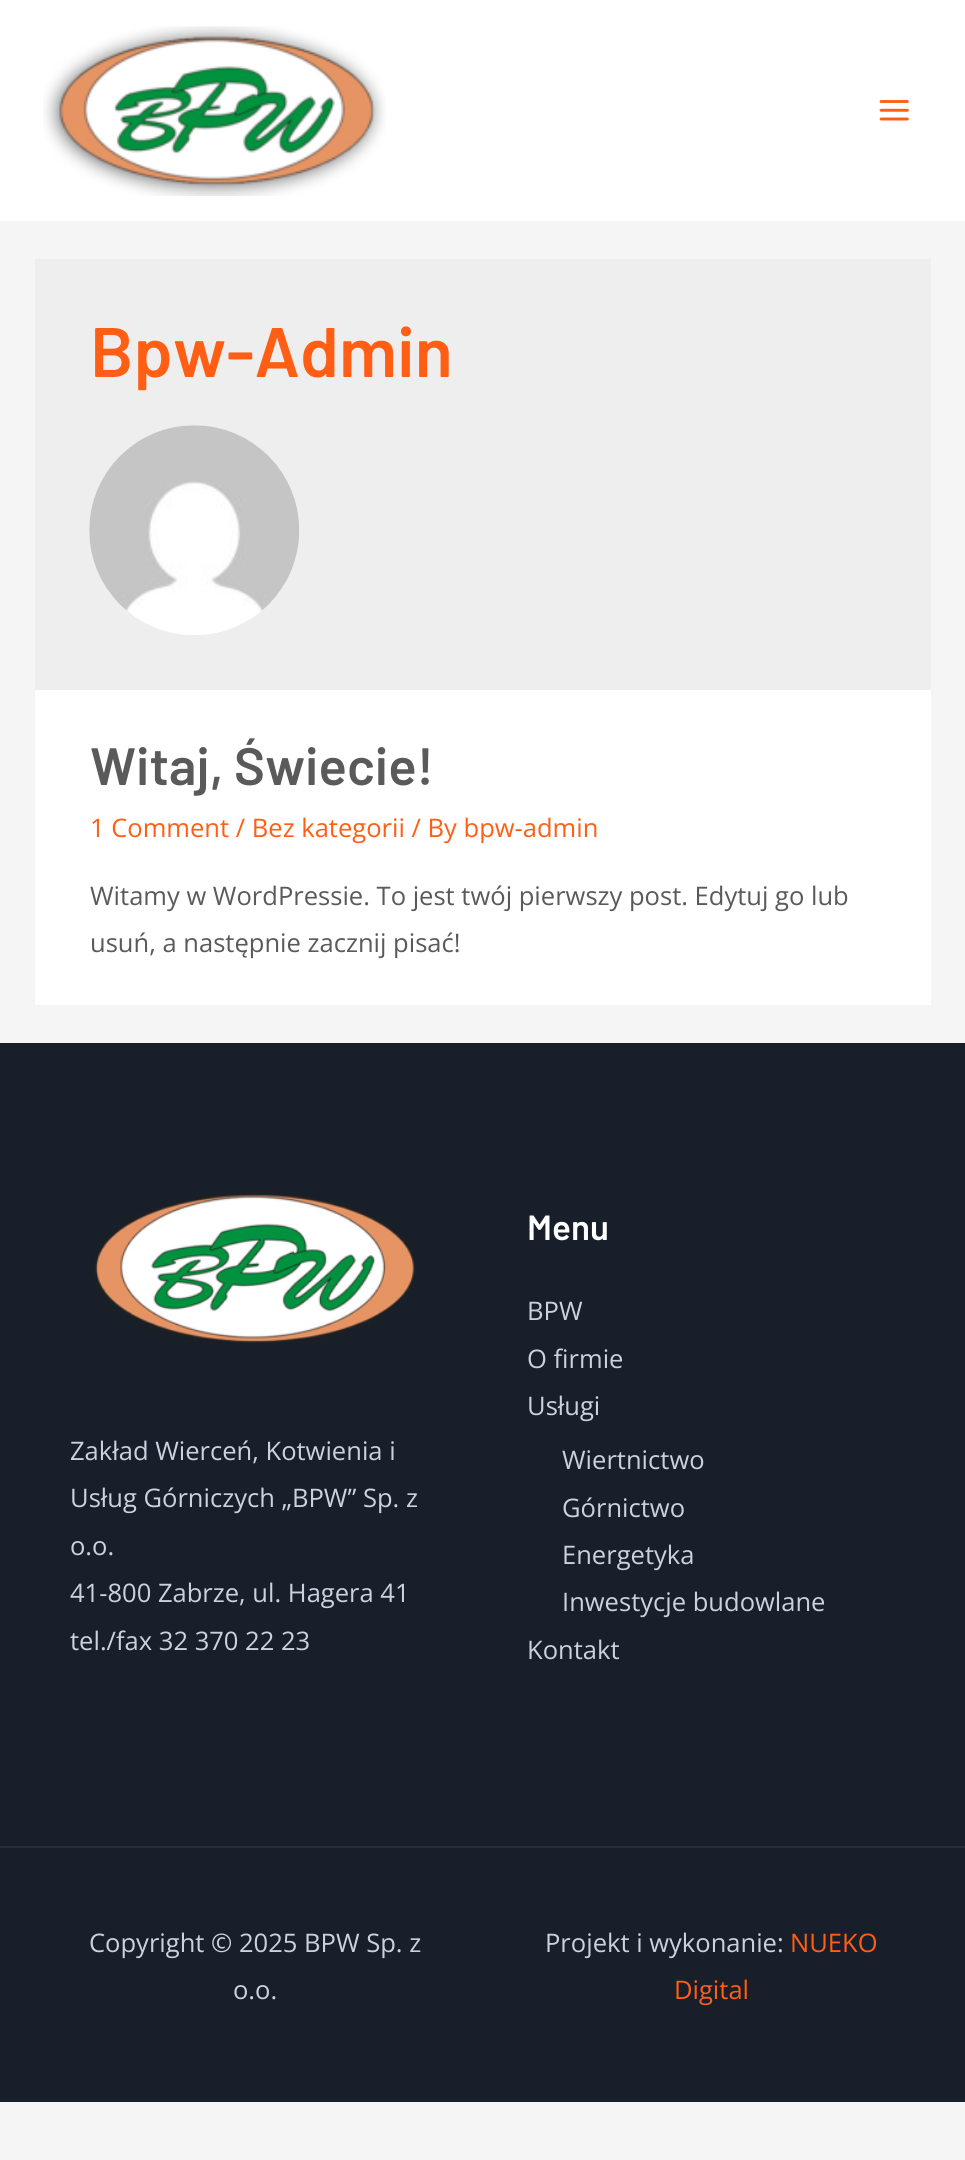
#include <cairo/cairo.h>
#include <math.h>
#include <stddef.h>

static cairo_t *cr;

static void use_color(int r, int g, int b) {
  cairo_set_source_rgb(cr, r / 255.0, g / 255.0, b / 255.0);
}

static void text(double x, double y, const char *s, const char *family, double size, int italic, int bold, int r, int g, int b) {
  cairo_select_font_face(cr, family, italic ? CAIRO_FONT_SLANT_ITALIC : CAIRO_FONT_SLANT_NORMAL,
    bold ? CAIRO_FONT_WEIGHT_BOLD : CAIRO_FONT_WEIGHT_NORMAL);
  cairo_set_font_size(cr, size);
  use_color(r, g, b);
  cairo_move_to(cr, x, y);
  cairo_show_text(cr, s);
}

static void box(double x, double y, double w, double h, int r, int g, int b) {
  use_color(r, g, b);
  cairo_rectangle(cr, x, y, w, h);
  cairo_fill(cr);
}

static void picture(const char *path, double x, double y, double w, double h) {
  cairo_surface_t *image = cairo_image_surface_create_from_png(path);
  cairo_save(cr);
  cairo_set_source_surface(cr, image, x, y);
  cairo_rectangle(cr, x, y, w, h);
  cairo_fill(cr);
  cairo_restore(cr);
  cairo_surface_destroy(image);
}

static void draw(void) {
  use_color(245, 245, 245);
  cairo_paint(cr);
  box(0, 0, 965, 221, 255, 255, 255);
  picture("img_01.png", 43, 26, 343, 170);
  picture("img_02.png", 879, 100, 30, 21);
  box(35, 259, 896, 431, 238, 238, 238);
  picture("img_03.png", 89, 425, 210, 210);
  box(35, 690, 896, 315, 255, 255, 255);
  box(0, 1043, 965, 803, 24, 31, 42);
  picture("img_04.png", 94, 1193, 321, 152);
  box(0, 1848, 965, 254, 24, 31, 42);
  box(0, 1846, 965, 2, 38, 45, 57);
  text(90, 377, "Bpw-Admin", "Barlow SemiBold", 70, 0, 0, 255, 94, 20);
  text(90, 785, "Witaj, Świecie!", "Barlow SemiBold", 52.5, 0, 0, 90, 90, 90);
  text(90, 837, "1 Comment / Bez kategorii / By bpw-admin", "Open Sans", 25.55, 0, 0, 255, 94, 20);
  text(90, 905, "Witamy w WordPressie. To jest twój pierwszy post. Edytuj go lub", "Open Sans", 25.55, 0, 0, 90, 90, 90);
  text(90, 952, "usuń, a następnie zacznij pisać!", "Open Sans", 25.55, 0, 0, 90, 90, 90);
  text(70, 1460, "Zakład Wierceń, Kotwienia i", "Open Sans", 25.55, 0, 0, 203, 210, 222);
  text(70, 1507, "Usług Górniczych „BPW” Sp. z", "Open Sans", 25.55, 0, 0, 203, 210, 222);
  text(70, 1555, "o.o.", "Open Sans", 25.55, 0, 0, 203, 210, 222);
  text(70, 1602, "41-800 Zabrze, ul. Hagera 41", "Open Sans", 25.55, 0, 0, 203, 210, 222);
  text(70, 1650, "tel./fax 32 370 22 23", "Open Sans", 25.55, 0, 0, 203, 210, 222);
  text(527, 1240, "Menu", "Barlow SemiBold", 35, 0, 0, 255, 255, 255);
  text(527, 1320, "BPW", "Open Sans", 25.55, 0, 0, 203, 210, 222);
  text(527, 1368, "O firmie", "Open Sans", 25.55, 0, 0, 203, 210, 222);
  text(527, 1415, "Usługi", "Open Sans", 25.55, 0, 0, 203, 210, 222);
  text(562, 1469, "Wiertnictwo", "Open Sans", 25.55, 0, 0, 203, 210, 222);
  text(562, 1517, "Górnictwo", "Open Sans", 25.55, 0, 0, 203, 210, 222);
  text(562, 1564, "Energetyka", "Open Sans", 25.55, 0, 0, 203, 210, 222);
  text(562, 1611, "Inwestycje budowlane", "Open Sans", 25.55, 0, 0, 203, 210, 222);
  text(527, 1659, "Kontakt", "Open Sans", 25.55, 0, 0, 203, 210, 222);
  text(89, 1952, "Copyright © 2025 BPW Sp. z", "Open Sans", 25.55, 0, 0, 203, 210, 222);
  text(233, 1999, "o.o.", "Open Sans", 25.55, 0, 0, 203, 210, 222);
  text(545, 1952, "Projekt i wykonanie:", "Open Sans", 25.55, 0, 0, 203, 210, 222);
  text(790, 1952, "NUEKO", "Open Sans", 25.55, 0, 0, 255, 94, 20);
  text(674, 1999, "Digital", "Open Sans", 25.55, 0, 0, 255, 94, 20);
}

int main(void) {
  cairo_surface_t *surface = cairo_image_surface_create(CAIRO_FORMAT_RGB24, 965, 2160);
  cr = cairo_create(surface);
  cairo_font_options_t *options = cairo_font_options_create();
  cairo_font_options_set_hint_metrics(options, CAIRO_HINT_METRICS_OFF);
  cairo_font_options_set_hint_style(options, CAIRO_HINT_STYLE_NONE);
  cairo_set_font_options(cr, options);
  cairo_set_miter_limit(cr, 4);
  draw();
  cairo_surface_write_to_png(surface, "out.png");
  cairo_font_options_destroy(options);
  cairo_destroy(cr);
  cairo_surface_destroy(surface);
  return 0;
}
